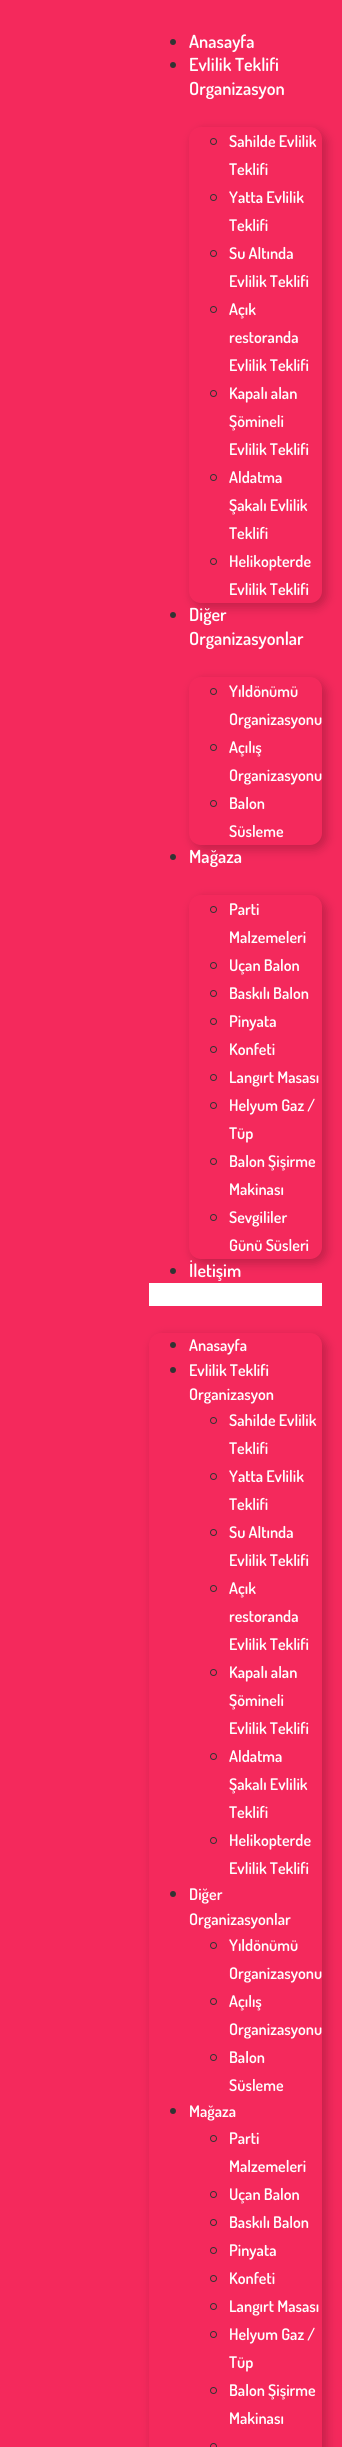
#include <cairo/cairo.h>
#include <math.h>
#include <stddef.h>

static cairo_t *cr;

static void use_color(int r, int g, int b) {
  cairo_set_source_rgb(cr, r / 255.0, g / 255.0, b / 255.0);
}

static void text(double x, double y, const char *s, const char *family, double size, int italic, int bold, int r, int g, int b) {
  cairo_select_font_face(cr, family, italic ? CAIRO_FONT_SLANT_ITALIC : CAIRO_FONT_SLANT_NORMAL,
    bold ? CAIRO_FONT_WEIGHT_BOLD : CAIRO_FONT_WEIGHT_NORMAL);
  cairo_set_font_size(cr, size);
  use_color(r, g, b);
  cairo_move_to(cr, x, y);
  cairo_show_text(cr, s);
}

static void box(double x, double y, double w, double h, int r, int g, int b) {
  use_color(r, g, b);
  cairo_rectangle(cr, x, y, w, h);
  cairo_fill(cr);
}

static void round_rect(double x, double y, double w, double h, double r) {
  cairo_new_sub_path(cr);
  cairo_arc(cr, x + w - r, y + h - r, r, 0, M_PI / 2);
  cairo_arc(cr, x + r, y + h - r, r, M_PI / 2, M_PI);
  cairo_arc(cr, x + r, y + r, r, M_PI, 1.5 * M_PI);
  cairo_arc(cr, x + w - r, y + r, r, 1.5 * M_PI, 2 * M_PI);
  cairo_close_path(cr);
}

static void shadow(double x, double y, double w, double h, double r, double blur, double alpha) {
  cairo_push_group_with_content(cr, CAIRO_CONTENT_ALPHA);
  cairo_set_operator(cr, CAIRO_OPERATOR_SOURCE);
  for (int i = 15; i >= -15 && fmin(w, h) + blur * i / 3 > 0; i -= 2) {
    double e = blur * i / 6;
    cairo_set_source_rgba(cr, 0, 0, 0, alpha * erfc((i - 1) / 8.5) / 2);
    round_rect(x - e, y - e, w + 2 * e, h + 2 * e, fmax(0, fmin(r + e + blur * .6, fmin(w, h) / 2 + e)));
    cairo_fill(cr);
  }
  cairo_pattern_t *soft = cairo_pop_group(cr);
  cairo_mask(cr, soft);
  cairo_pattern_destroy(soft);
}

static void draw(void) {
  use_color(244, 41, 92);
  cairo_paint(cr);
  use_color(51, 51, 51);
  cairo_arc(cr, 173, 42, 3, 0, 2 * M_PI);
  cairo_fill(cr);
  cairo_arc(cr, 173, 65, 3, 0, 2 * M_PI);
  cairo_fill(cr);
  use_color(0, 0, 0);
  shadow(192, 130, 135, 478, 13, 5, 0.2);
  use_color(244, 41, 92);
  round_rect(189, 127, 133, 476, 12);
  cairo_fill(cr);
  cairo_arc(cr, 213.5, 141.5, 3, 0, 2 * M_PI);
  use_color(51, 51, 51);
  cairo_set_line_width(cr, 1);
  cairo_stroke(cr);
  cairo_arc(cr, 213.5, 197.5, 3, 0, 2 * M_PI);
  cairo_stroke(cr);
  cairo_arc(cr, 213.5, 253.5, 3, 0, 2 * M_PI);
  cairo_stroke(cr);
  cairo_arc(cr, 213.5, 309.5, 3, 0, 2 * M_PI);
  cairo_stroke(cr);
  cairo_arc(cr, 213.5, 393.5, 3, 0, 2 * M_PI);
  cairo_stroke(cr);
  cairo_arc(cr, 213.5, 477.5, 3, 0, 2 * M_PI);
  cairo_stroke(cr);
  cairo_arc(cr, 213.5, 561.5, 3, 0, 2 * M_PI);
  cairo_stroke(cr);
  cairo_arc(cr, 173, 615, 3, 0, 2 * M_PI);
  cairo_fill(cr);
  use_color(0, 0, 0);
  shadow(192, 680, 135, 170, 13, 5, 0.2);
  use_color(244, 41, 92);
  round_rect(189, 677, 133, 168, 12);
  cairo_fill(cr);
  cairo_arc(cr, 213.5, 691.5, 3, 0, 2 * M_PI);
  use_color(51, 51, 51);
  cairo_stroke(cr);
  cairo_arc(cr, 213.5, 747.5, 3, 0, 2 * M_PI);
  cairo_stroke(cr);
  cairo_arc(cr, 213.5, 803.5, 3, 0, 2 * M_PI);
  cairo_stroke(cr);
  cairo_arc(cr, 173, 857, 3, 0, 2 * M_PI);
  cairo_fill(cr);
  use_color(0, 0, 0);
  shadow(192, 898, 135, 366, 13, 5, 0.2);
  use_color(244, 41, 92);
  round_rect(189, 895, 133, 364, 12);
  cairo_fill(cr);
  cairo_arc(cr, 213.5, 909.5, 3, 0, 2 * M_PI);
  use_color(51, 51, 51);
  cairo_stroke(cr);
  cairo_arc(cr, 213.5, 965.5, 3, 0, 2 * M_PI);
  cairo_stroke(cr);
  cairo_arc(cr, 213.5, 993.5, 3, 0, 2 * M_PI);
  cairo_stroke(cr);
  cairo_arc(cr, 213.5, 1021.5, 3, 0, 2 * M_PI);
  cairo_stroke(cr);
  cairo_arc(cr, 213.5, 1049.5, 3, 0, 2 * M_PI);
  cairo_stroke(cr);
  cairo_arc(cr, 213.5, 1077.5, 3, 0, 2 * M_PI);
  cairo_stroke(cr);
  cairo_arc(cr, 213.5, 1105.5, 3, 0, 2 * M_PI);
  cairo_stroke(cr);
  cairo_arc(cr, 213.5, 1161.5, 3, 0, 2 * M_PI);
  cairo_stroke(cr);
  cairo_arc(cr, 213.5, 1217.5, 3, 0, 2 * M_PI);
  cairo_stroke(cr);
  cairo_arc(cr, 173, 1271, 3, 0, 2 * M_PI);
  cairo_fill(cr);
  box(149, 1283, 173, 23, 255, 255, 255);
  use_color(0, 0, 0);
  shadow(152, 1336, 175, 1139, 13, 5, 0.2);
  use_color(244, 41, 92);
  round_rect(149, 1333, 173, 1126, 12);
  cairo_fill(cr);
  use_color(51, 51, 51);
  cairo_arc(cr, 173, 1345, 3, 0, 2 * M_PI);
  cairo_fill(cr);
  cairo_arc(cr, 173, 1370, 3, 0, 2 * M_PI);
  cairo_fill(cr);
  cairo_arc(cr, 213.5, 1420.5, 3, 0, 2 * M_PI);
  cairo_stroke(cr);
  cairo_arc(cr, 213.5, 1476.5, 3, 0, 2 * M_PI);
  cairo_stroke(cr);
  cairo_arc(cr, 213.5, 1532.5, 3, 0, 2 * M_PI);
  cairo_stroke(cr);
  cairo_arc(cr, 213.5, 1588.5, 3, 0, 2 * M_PI);
  cairo_stroke(cr);
  cairo_arc(cr, 213.5, 1672.5, 3, 0, 2 * M_PI);
  cairo_stroke(cr);
  cairo_arc(cr, 213.5, 1756.5, 3, 0, 2 * M_PI);
  cairo_stroke(cr);
  cairo_arc(cr, 213.5, 1840.5, 3, 0, 2 * M_PI);
  cairo_stroke(cr);
  cairo_arc(cr, 173, 1894, 3, 0, 2 * M_PI);
  cairo_fill(cr);
  cairo_arc(cr, 213.5, 1945.5, 3, 0, 2 * M_PI);
  cairo_stroke(cr);
  cairo_arc(cr, 213.5, 2001.5, 3, 0, 2 * M_PI);
  cairo_stroke(cr);
  cairo_arc(cr, 213.5, 2057.5, 3, 0, 2 * M_PI);
  cairo_stroke(cr);
  cairo_arc(cr, 173, 2111, 3, 0, 2 * M_PI);
  cairo_fill(cr);
  cairo_arc(cr, 213.5, 2138.5, 3, 0, 2 * M_PI);
  cairo_stroke(cr);
  cairo_arc(cr, 213.5, 2194.5, 3, 0, 2 * M_PI);
  cairo_stroke(cr);
  cairo_arc(cr, 213.5, 2222.5, 3, 0, 2 * M_PI);
  cairo_stroke(cr);
  cairo_arc(cr, 213.5, 2250.5, 3, 0, 2 * M_PI);
  cairo_stroke(cr);
  cairo_arc(cr, 213.5, 2278.5, 3, 0, 2 * M_PI);
  cairo_stroke(cr);
  cairo_arc(cr, 213.5, 2306.5, 3, 0, 2 * M_PI);
  cairo_stroke(cr);
  cairo_arc(cr, 213.5, 2334.5, 3, 0, 2 * M_PI);
  cairo_stroke(cr);
  cairo_arc(cr, 213.5, 2390.5, 3, 0, 2 * M_PI);
  cairo_stroke(cr);
  cairo_arc(cr, 213.5, 2446.5, 3, 0, 2 * M_PI);
  cairo_stroke(cr);
  text(189, 48, "Anasayfa", "Dosis SemiBold", 18, 0, 0, 255, 255, 255);
  text(189, 71, "Evlilik Teklifi", "Dosis SemiBold", 18, 0, 0, 255, 255, 255);
  text(189, 95, "Organizasyon", "Dosis SemiBold", 18, 0, 0, 255, 255, 255);
  text(229, 147, "Sahilde Evlilik", "Dosis SemiBold", 16, 0, 0, 255, 255, 255);
  text(229, 175, "Teklifi", "Dosis SemiBold", 16, 0, 0, 255, 255, 255);
  text(229, 203, "Yatta Evlilik", "Dosis SemiBold", 16, 0, 0, 255, 255, 255);
  text(229, 231, "Teklifi", "Dosis SemiBold", 16, 0, 0, 255, 255, 255);
  text(229, 259, "Su Altında", "Dosis SemiBold", 16, 0, 0, 255, 255, 255);
  text(229, 287, "Evlilik Teklifi", "Dosis SemiBold", 16, 0, 0, 255, 255, 255);
  text(229, 315, "Açık", "Dosis SemiBold", 16, 0, 0, 255, 255, 255);
  text(229, 343, "restoranda", "Dosis SemiBold", 16, 0, 0, 255, 255, 255);
  text(229, 371, "Evlilik Teklifi", "Dosis SemiBold", 16, 0, 0, 255, 255, 255);
  text(229, 399, "Kapalı alan", "Dosis SemiBold", 16, 0, 0, 255, 255, 255);
  text(229, 427, "Şömineli", "Dosis SemiBold", 16, 0, 0, 255, 255, 255);
  text(229, 455, "Evlilik Teklifi", "Dosis SemiBold", 16, 0, 0, 255, 255, 255);
  text(229, 483, "Aldatma", "Dosis SemiBold", 16, 0, 0, 255, 255, 255);
  text(229, 511, "Şakalı Evlilik", "Dosis SemiBold", 16, 0, 0, 255, 255, 255);
  text(229, 539, "Teklifi", "Dosis SemiBold", 16, 0, 0, 255, 255, 255);
  text(229, 567, "Helikopterde", "Dosis SemiBold", 16, 0, 0, 255, 255, 255);
  text(229, 595, "Evlilik Teklifi", "Dosis SemiBold", 16, 0, 0, 255, 255, 255);
  text(189, 621, "Diğer", "Dosis SemiBold", 18, 0, 0, 255, 255, 255);
  text(189, 645, "Organizasyonlar", "Dosis SemiBold", 18, 0, 0, 255, 255, 255);
  text(229, 697, "Yıldönümü", "Dosis SemiBold", 16, 0, 0, 255, 255, 255);
  text(229, 725, "Organizasyonu", "Dosis SemiBold", 16, 0, 0, 255, 255, 255);
  text(229, 753, "Açılış", "Dosis SemiBold", 16, 0, 0, 255, 255, 255);
  text(229, 781, "Organizasyonu", "Dosis SemiBold", 16, 0, 0, 255, 255, 255);
  text(229, 809, "Balon", "Dosis SemiBold", 16, 0, 0, 255, 255, 255);
  text(229, 837, "Süsleme", "Dosis SemiBold", 16, 0, 0, 255, 255, 255);
  text(189, 863, "Mağaza", "Dosis SemiBold", 18, 0, 0, 255, 255, 255);
  text(229, 915, "Parti", "Dosis SemiBold", 16, 0, 0, 255, 255, 255);
  text(229, 943, "Malzemeleri", "Dosis SemiBold", 16, 0, 0, 255, 255, 255);
  text(229, 971, "Uçan Balon", "Dosis SemiBold", 16, 0, 0, 255, 255, 255);
  text(229, 999, "Baskılı Balon", "Dosis SemiBold", 16, 0, 0, 255, 255, 255);
  text(229, 1027, "Pinyata", "Dosis SemiBold", 16, 0, 0, 255, 255, 255);
  text(229, 1055, "Konfeti", "Dosis SemiBold", 16, 0, 0, 255, 255, 255);
  text(229, 1083, "Langırt Masası", "Dosis SemiBold", 16, 0, 0, 255, 255, 255);
  text(229, 1111, "Helyum Gaz /", "Dosis SemiBold", 16, 0, 0, 255, 255, 255);
  text(229, 1139, "Tüp", "Dosis SemiBold", 16, 0, 0, 255, 255, 255);
  text(229, 1167, "Balon Şişirme", "Dosis SemiBold", 16, 0, 0, 255, 255, 255);
  text(229, 1195, "Makinası", "Dosis SemiBold", 16, 0, 0, 255, 255, 255);
  text(229, 1223, "Sevgililer", "Dosis SemiBold", 16, 0, 0, 255, 255, 255);
  text(229, 1251, "Günü Süsleri", "Dosis SemiBold", 16, 0, 0, 255, 255, 255);
  text(189, 1277, "İletişim", "Dosis SemiBold", 18, 0, 0, 255, 255, 255);
  text(189, 1351, "Anasayfa", "Dosis SemiBold", 16, 0, 0, 255, 255, 255);
  text(189, 1376, "Evlilik Teklifi", "Dosis SemiBold", 16, 0, 0, 255, 255, 255);
  text(189, 1400, "Organizasyon", "Dosis SemiBold", 16, 0, 0, 255, 255, 255);
  text(229, 1426, "Sahilde Evlilik", "Dosis SemiBold", 16, 0, 0, 255, 255, 255);
  text(229, 1454, "Teklifi", "Dosis SemiBold", 16, 0, 0, 255, 255, 255);
  text(229, 1482, "Yatta Evlilik", "Dosis SemiBold", 16, 0, 0, 255, 255, 255);
  text(229, 1510, "Teklifi", "Dosis SemiBold", 16, 0, 0, 255, 255, 255);
  text(229, 1538, "Su Altında", "Dosis SemiBold", 16, 0, 0, 255, 255, 255);
  text(229, 1566, "Evlilik Teklifi", "Dosis SemiBold", 16, 0, 0, 255, 255, 255);
  text(229, 1594, "Açık", "Dosis SemiBold", 16, 0, 0, 255, 255, 255);
  text(229, 1622, "restoranda", "Dosis SemiBold", 16, 0, 0, 255, 255, 255);
  text(229, 1650, "Evlilik Teklifi", "Dosis SemiBold", 16, 0, 0, 255, 255, 255);
  text(229, 1678, "Kapalı alan", "Dosis SemiBold", 16, 0, 0, 255, 255, 255);
  text(229, 1706, "Şömineli", "Dosis SemiBold", 16, 0, 0, 255, 255, 255);
  text(229, 1734, "Evlilik Teklifi", "Dosis SemiBold", 16, 0, 0, 255, 255, 255);
  text(229, 1762, "Aldatma", "Dosis SemiBold", 16, 0, 0, 255, 255, 255);
  text(229, 1790, "Şakalı Evlilik", "Dosis SemiBold", 16, 0, 0, 255, 255, 255);
  text(229, 1818, "Teklifi", "Dosis SemiBold", 16, 0, 0, 255, 255, 255);
  text(229, 1846, "Helikopterde", "Dosis SemiBold", 16, 0, 0, 255, 255, 255);
  text(229, 1874, "Evlilik Teklifi", "Dosis SemiBold", 16, 0, 0, 255, 255, 255);
  text(189, 1900, "Diğer", "Dosis SemiBold", 16, 0, 0, 255, 255, 255);
  text(189, 1925, "Organizasyonlar", "Dosis SemiBold", 16, 0, 0, 255, 255, 255);
  text(229, 1951, "Yıldönümü", "Dosis SemiBold", 16, 0, 0, 255, 255, 255);
  text(229, 1979, "Organizasyonu", "Dosis SemiBold", 16, 0, 0, 255, 255, 255);
  text(229, 2007, "Açılış", "Dosis SemiBold", 16, 0, 0, 255, 255, 255);
  text(229, 2035, "Organizasyonu", "Dosis SemiBold", 16, 0, 0, 255, 255, 255);
  text(229, 2063, "Balon", "Dosis SemiBold", 16, 0, 0, 255, 255, 255);
  text(229, 2091, "Süsleme", "Dosis SemiBold", 16, 0, 0, 255, 255, 255);
  text(189, 2117, "Mağaza", "Dosis SemiBold", 16, 0, 0, 255, 255, 255);
  text(229, 2144, "Parti", "Dosis SemiBold", 16, 0, 0, 255, 255, 255);
  text(229, 2172, "Malzemeleri", "Dosis SemiBold", 16, 0, 0, 255, 255, 255);
  text(229, 2200, "Uçan Balon", "Dosis SemiBold", 16, 0, 0, 255, 255, 255);
  text(229, 2228, "Baskılı Balon", "Dosis SemiBold", 16, 0, 0, 255, 255, 255);
  text(229, 2256, "Pinyata", "Dosis SemiBold", 16, 0, 0, 255, 255, 255);
  text(229, 2284, "Konfeti", "Dosis SemiBold", 16, 0, 0, 255, 255, 255);
  text(229, 2312, "Langırt Masası", "Dosis SemiBold", 16, 0, 0, 255, 255, 255);
  text(229, 2340, "Helyum Gaz /", "Dosis SemiBold", 16, 0, 0, 255, 255, 255);
  text(229, 2368, "Tüp", "Dosis SemiBold", 16, 0, 0, 255, 255, 255);
  text(229, 2396, "Balon Şişirme", "Dosis SemiBold", 16, 0, 0, 255, 255, 255);
  text(229, 2424, "Makinası", "Dosis SemiBold", 16, 0, 0, 255, 255, 255);
}

int main(void) {
  cairo_surface_t *surface = cairo_image_surface_create(CAIRO_FORMAT_RGB24, 342, 2447);
  cr = cairo_create(surface);
  cairo_font_options_t *options = cairo_font_options_create();
  cairo_font_options_set_hint_metrics(options, CAIRO_HINT_METRICS_OFF);
  cairo_font_options_set_hint_style(options, CAIRO_HINT_STYLE_NONE);
  cairo_set_font_options(cr, options);
  cairo_set_miter_limit(cr, 4);
  draw();
  cairo_surface_write_to_png(surface, "out.png");
  cairo_font_options_destroy(options);
  cairo_destroy(cr);
  cairo_surface_destroy(surface);
  return 0;
}
